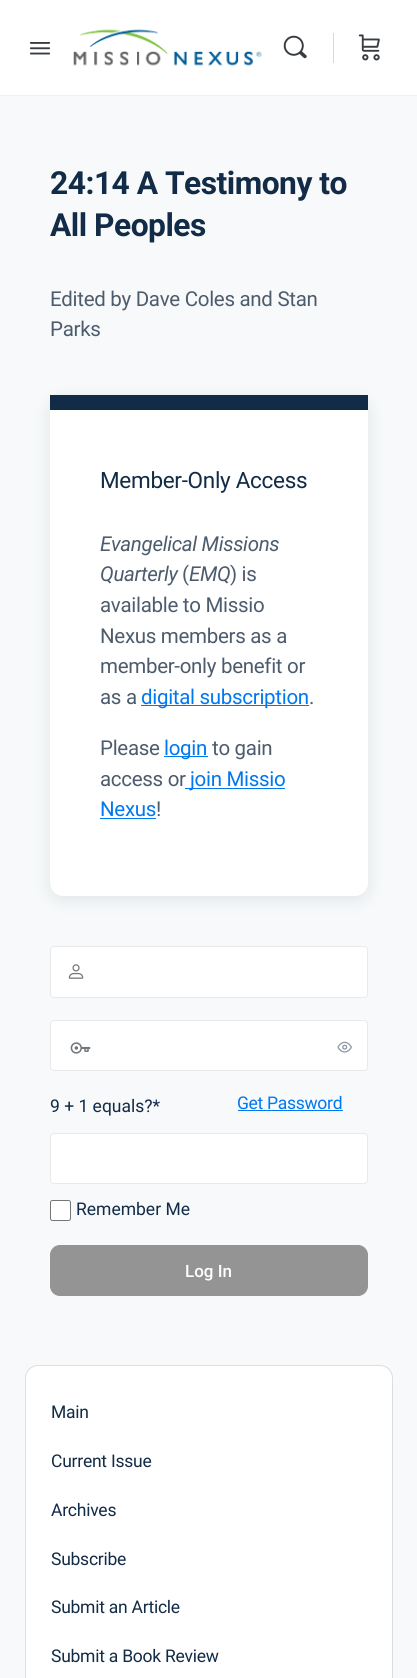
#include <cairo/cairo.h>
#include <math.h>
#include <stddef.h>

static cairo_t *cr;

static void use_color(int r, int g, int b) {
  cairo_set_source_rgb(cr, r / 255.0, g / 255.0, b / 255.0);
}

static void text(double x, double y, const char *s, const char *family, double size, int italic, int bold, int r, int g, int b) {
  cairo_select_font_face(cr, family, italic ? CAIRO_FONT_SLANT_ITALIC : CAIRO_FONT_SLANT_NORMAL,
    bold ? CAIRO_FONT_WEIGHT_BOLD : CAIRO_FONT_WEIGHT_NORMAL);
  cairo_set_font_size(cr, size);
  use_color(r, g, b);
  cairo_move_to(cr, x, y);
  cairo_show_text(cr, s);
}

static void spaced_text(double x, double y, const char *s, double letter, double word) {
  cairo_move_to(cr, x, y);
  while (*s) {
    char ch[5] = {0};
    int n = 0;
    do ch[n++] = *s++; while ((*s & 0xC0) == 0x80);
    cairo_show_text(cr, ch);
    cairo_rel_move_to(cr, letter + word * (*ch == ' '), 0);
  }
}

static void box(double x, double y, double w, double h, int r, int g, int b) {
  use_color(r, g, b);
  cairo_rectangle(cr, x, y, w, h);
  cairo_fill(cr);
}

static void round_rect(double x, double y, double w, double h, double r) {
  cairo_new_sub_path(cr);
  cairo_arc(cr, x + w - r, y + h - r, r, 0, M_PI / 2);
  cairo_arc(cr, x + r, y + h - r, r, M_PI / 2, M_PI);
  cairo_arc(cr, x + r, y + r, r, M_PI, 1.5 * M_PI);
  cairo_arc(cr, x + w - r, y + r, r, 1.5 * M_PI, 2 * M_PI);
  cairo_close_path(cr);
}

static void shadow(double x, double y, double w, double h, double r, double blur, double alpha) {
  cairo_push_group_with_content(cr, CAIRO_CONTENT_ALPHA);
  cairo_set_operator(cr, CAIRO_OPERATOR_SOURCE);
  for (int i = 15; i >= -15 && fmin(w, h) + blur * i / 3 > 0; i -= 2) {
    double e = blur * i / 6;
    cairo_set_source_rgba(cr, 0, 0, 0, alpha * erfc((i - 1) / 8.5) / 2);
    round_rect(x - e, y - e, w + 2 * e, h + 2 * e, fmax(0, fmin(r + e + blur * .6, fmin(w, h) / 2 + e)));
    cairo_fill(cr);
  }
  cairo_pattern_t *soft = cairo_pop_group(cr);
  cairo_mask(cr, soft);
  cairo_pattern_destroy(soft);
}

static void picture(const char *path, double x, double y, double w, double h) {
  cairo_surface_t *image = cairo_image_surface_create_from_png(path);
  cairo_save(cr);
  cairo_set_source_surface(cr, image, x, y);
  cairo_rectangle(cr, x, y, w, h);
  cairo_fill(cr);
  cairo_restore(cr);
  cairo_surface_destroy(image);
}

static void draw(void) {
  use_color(247, 249, 250);
  cairo_paint(cr);
  use_color(239, 241, 243);
  cairo_new_path(cr);
  cairo_move_to(cr, 0, 95);
  cairo_line_to(cr, 0, 96);
  cairo_line_to(cr, 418, 96);
  cairo_line_to(cr, 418, 1);
  cairo_line_to(cr, 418, 95);
  cairo_close_path(cr);
  cairo_fill(cr);
  box(0, 0, 417, 95, 255, 255, 255);
  picture("img_01.png", 30, 42, 20, 13);
  picture("img_02.png", 73, 29, 189, 37);
  picture("img_03.png", 283, 35, 24, 24);
  box(333, 33, 1, 30, 215, 216, 217);
  picture("img_04.png", 358, 34, 22, 27);
  use_color(18, 43, 70);
  shadow(50, 399, 318, 501, 13, 8, 0.1);
  use_color(255, 255, 255);
  cairo_new_path(cr);
  cairo_move_to(cr, 50, 395);
  cairo_line_to(cr, 368, 395);
  cairo_line_to(cr, 368, 883);
  cairo_curve_to(cr, 368, 890, 362, 896, 355, 896);
  cairo_line_to(cr, 63, 896);
  cairo_curve_to(cr, 56, 896, 50, 890, 50, 883);
  cairo_close_path(cr);
  cairo_fill(cr);
  box(50, 395, 318, 15, 18, 43, 70);
  box(141, 705, 168, 1, 0, 120, 240);
  box(164, 756, 44, 1, 0, 120, 240);
  box(185, 788, 100, 1, 0, 120, 240);
  box(100, 818, 56, 1, 0, 120, 240);
  use_color(255, 255, 255);
  round_rect(50.5, 946.5, 317, 51, 3.5);
  cairo_fill_preserve(cr);
  use_color(231, 233, 236);
  cairo_set_line_width(cr, 1);
  cairo_stroke(cr);
  picture("img_05.png", 68, 964, 16, 15);
  use_color(255, 255, 255);
  round_rect(50.5, 1020.5, 317, 50, 3.5);
  cairo_fill_preserve(cr);
  use_color(231, 233, 236);
  cairo_stroke(cr);
  picture("img_06.png", 337, 1041, 15, 12);
  picture("img_07.png", 70, 1042, 21, 12);
  use_color(255, 255, 255);
  round_rect(50.5, 1133.5, 317, 50, 3.5);
  cairo_fill_preserve(cr);
  use_color(231, 233, 236);
  cairo_stroke(cr);
  use_color(255, 255, 255);
  round_rect(50.5, 1200.5, 20, 20, 2);
  cairo_fill_preserve(cr);
  use_color(118, 118, 118);
  cairo_stroke(cr);
  use_color(148, 148, 148);
  round_rect(50.5, 1245.5, 317, 50, 9.5);
  cairo_fill_preserve(cr);
  cairo_stroke(cr);
  box(238, 1110, 105, 1, 0, 120, 240);
  use_color(255, 255, 255);
  round_rect(25.5, 1365.5, 367, 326, 12.5);
  cairo_fill_preserve(cr);
  use_color(220, 222, 224);
  cairo_stroke(cr);
  cairo_select_font_face(cr, "Roboto", CAIRO_FONT_SLANT_NORMAL, CAIRO_FONT_WEIGHT_BOLD);
  cairo_set_font_size(cr, 31.75);
  use_color(18, 43, 70);
  spaced_text(50, 194, "24:14 A Testimony to", -0.5, 0);
  spaced_text(50, 236, "All Peoples", -0.5, 0);
  cairo_select_font_face(cr, "Roboto", CAIRO_FONT_SLANT_NORMAL, CAIRO_FONT_WEIGHT_NORMAL);
  cairo_set_font_size(cr, 20.5);
  use_color(77, 92, 109);
  spaced_text(50, 306, "Edited by Dave Coles and Stan", -0.3, 0);
  spaced_text(50, 336, "Parks", -0.3, 0);
  cairo_set_font_size(cr, 22.5);
  use_color(18, 43, 70);
  spaced_text(100, 488, "Member-Only Access", -0.3, 0);
  cairo_select_font_face(cr, "Roboto", CAIRO_FONT_SLANT_ITALIC, CAIRO_FONT_WEIGHT_NORMAL);
  cairo_set_font_size(cr, 20.5);
  use_color(77, 92, 109);
  spaced_text(100, 551, "Evangelical Missions", -0.3, 0);
  spaced_text(100, 581, "Quarterly", -0.3, 0);
  cairo_select_font_face(cr, "Roboto", CAIRO_FONT_SLANT_NORMAL, CAIRO_FONT_WEIGHT_NORMAL);
  spaced_text(182, 581, "(", -0.3, 0);
  cairo_select_font_face(cr, "Roboto", CAIRO_FONT_SLANT_ITALIC, CAIRO_FONT_WEIGHT_NORMAL);
  spaced_text(189, 581, "EMQ", -0.3, 0);
  cairo_select_font_face(cr, "Roboto", CAIRO_FONT_SLANT_NORMAL, CAIRO_FONT_WEIGHT_NORMAL);
  spaced_text(230, 581, ") is", -0.3, 0);
  spaced_text(100, 612, "available to Missio", -0.3, 0);
  spaced_text(100, 643, "Nexus members as a", -0.3, 0);
  spaced_text(100, 673, "member-only benefit or", -0.3, 0);
  spaced_text(100, 704, "as a", -0.3, 0);
  use_color(0, 120, 240);
  spaced_text(141, 704, "digital subscription", -0.3, 0);
  use_color(77, 92, 109);
  spaced_text(309, 704, ".", -0.3, 0);
  spaced_text(100, 755, "Please", -0.3, 0);
  use_color(0, 120, 240);
  spaced_text(164, 755, "login", -0.3, 0);
  use_color(77, 92, 109);
  spaced_text(212, 755, "to gain", -0.3, 0);
  spaced_text(100, 786, "access or", -0.3, 0);
  use_color(0, 120, 240);
  spaced_text(190, 786, "join Missio", -0.3, 0);
  spaced_text(100, 816, "Nexus", -0.3, 0);
  use_color(77, 92, 109);
  spaced_text(156, 816, "!", -0.3, 0);
  text(50, 1112, "9 + 1 equals?*", "Roboto", 17.5, 0, 0, 18, 43, 70);
  text(76, 1215, "Remember Me", "Roboto", 17.5, 0, 0, 18, 43, 70);
  text(185, 1277, "Log In", "Roboto Medium", 17, 0, 0, 255, 255, 255);
  cairo_select_font_face(cr, "Roboto", CAIRO_FONT_SLANT_NORMAL, CAIRO_FONT_WEIGHT_NORMAL);
  cairo_set_font_size(cr, 17.5);
  use_color(0, 120, 240);
  spaced_text(237, 1109, "Get Password", -0.3, 0);
  use_color(18, 43, 70);
  spaced_text(51, 1418, "Main", -0.25, 0);
  spaced_text(51, 1467, "Current Issue", -0.25, 0);
  spaced_text(51, 1516, "Archives", -0.25, 0);
  spaced_text(51, 1565, "Subscribe", -0.25, 0);
  spaced_text(51, 1613, "Submit an Article", -0.25, 0);
  spaced_text(51, 1662, "Submit a Book Review", -0.25, 0);
}

int main(void) {
  cairo_surface_t *surface = cairo_image_surface_create(CAIRO_FORMAT_RGB24, 417, 1678);
  cr = cairo_create(surface);
  cairo_font_options_t *options = cairo_font_options_create();
  cairo_font_options_set_hint_metrics(options, CAIRO_HINT_METRICS_OFF);
  cairo_font_options_set_hint_style(options, CAIRO_HINT_STYLE_NONE);
  cairo_set_font_options(cr, options);
  cairo_set_miter_limit(cr, 4);
  draw();
  cairo_surface_write_to_png(surface, "out.png");
  cairo_font_options_destroy(options);
  cairo_destroy(cr);
  cairo_surface_destroy(surface);
  return 0;
}
